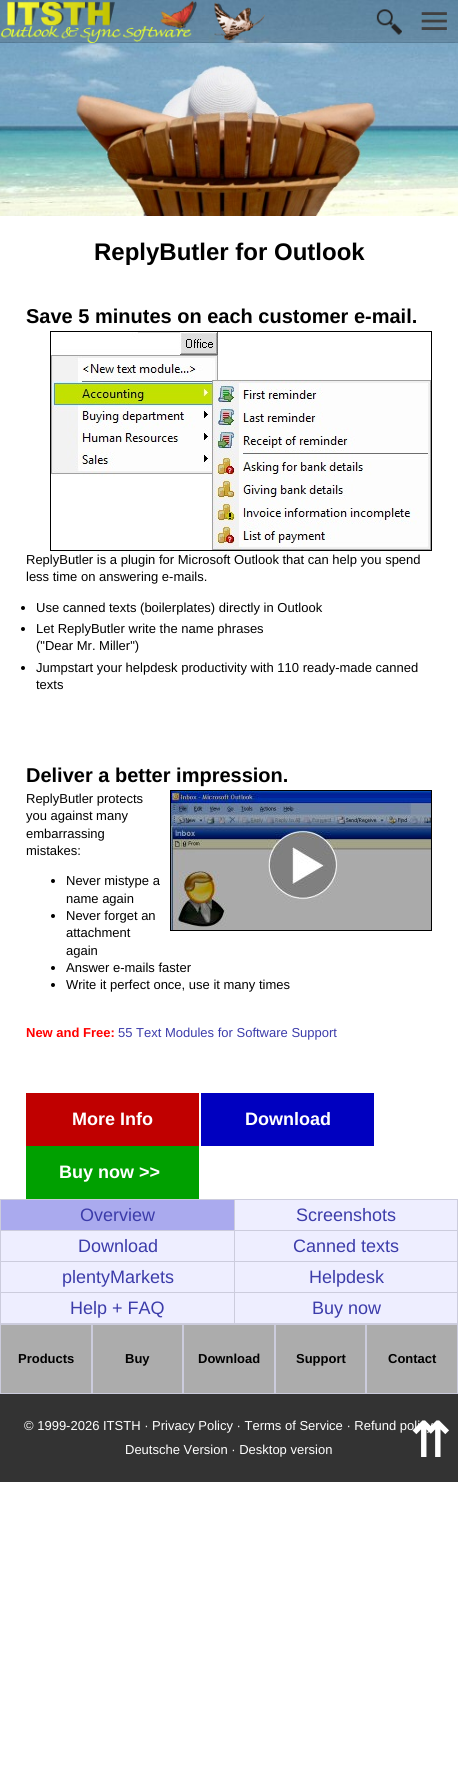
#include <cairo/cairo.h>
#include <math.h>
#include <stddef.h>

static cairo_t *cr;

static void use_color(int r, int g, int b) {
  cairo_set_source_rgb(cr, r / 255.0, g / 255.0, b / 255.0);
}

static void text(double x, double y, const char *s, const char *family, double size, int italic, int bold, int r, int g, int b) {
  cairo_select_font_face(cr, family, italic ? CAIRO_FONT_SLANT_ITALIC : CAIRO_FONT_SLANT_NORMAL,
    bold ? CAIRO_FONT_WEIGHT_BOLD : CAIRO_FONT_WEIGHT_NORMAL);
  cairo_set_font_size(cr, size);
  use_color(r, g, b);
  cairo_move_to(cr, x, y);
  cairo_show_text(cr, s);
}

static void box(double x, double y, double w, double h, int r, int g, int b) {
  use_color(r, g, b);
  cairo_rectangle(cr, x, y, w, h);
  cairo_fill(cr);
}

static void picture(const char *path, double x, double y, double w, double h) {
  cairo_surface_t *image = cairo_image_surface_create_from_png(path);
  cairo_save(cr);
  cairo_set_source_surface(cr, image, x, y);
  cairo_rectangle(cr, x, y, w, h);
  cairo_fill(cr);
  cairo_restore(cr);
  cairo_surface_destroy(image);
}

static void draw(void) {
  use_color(255, 255, 255);
  cairo_paint(cr);
  picture("img_01.png", 0, 0, 458, 43);
  picture("img_02.png", 1, 1, 446, 42);
  picture("img_03.png", 0, 43, 458, 173);
  cairo_rectangle(cr, 50.5, 331.5, 381, 219);
  use_color(0, 0, 0);
  cairo_set_line_width(cr, 1);
  cairo_stroke(cr);
  picture("img_04.png", 51, 332, 380, 218);
  cairo_arc(cr, 23, 608, 2, 0, 2 * M_PI);
  cairo_fill(cr);
  cairo_arc(cr, 23, 629, 2, 0, 2 * M_PI);
  cairo_fill(cr);
  cairo_arc(cr, 23, 668, 2, 0, 2 * M_PI);
  cairo_fill(cr);
  cairo_rectangle(cr, 170.5, 790.5, 261, 140);
  cairo_stroke(cr);
  picture("img_05.png", 171, 791, 260, 139);
  cairo_arc(cr, 53, 881, 2, 0, 2 * M_PI);
  cairo_fill(cr);
  cairo_arc(cr, 53, 916, 2, 0, 2 * M_PI);
  cairo_fill(cr);
  cairo_arc(cr, 53, 968, 2, 0, 2 * M_PI);
  cairo_fill(cr);
  cairo_arc(cr, 53, 985, 2, 0, 2 * M_PI);
  cairo_fill(cr);
  box(26, 1093, 173, 53, 192, 0, 0);
  box(201, 1093, 173, 53, 0, 0, 192);
  box(26, 1146, 173, 53, 0, 160, 0);
  box(235, 1200, 222, 30, 238, 238, 255);
  box(0, 1199, 458, 1, 204, 204, 221);
  box(0, 1230, 458, 1, 204, 204, 221);
  box(0, 1261, 458, 1, 204, 204, 221);
  box(0, 1292, 458, 1, 204, 204, 221);
  box(457, 1292, 1, 32, 204, 204, 221);
  box(457, 1261, 1, 32, 204, 204, 221);
  box(457, 1230, 1, 32, 204, 204, 221);
  box(457, 1199, 1, 32, 204, 204, 221);
  box(0, 1323, 458, 1, 204, 204, 221);
  box(0, 1292, 1, 32, 204, 204, 221);
  box(0, 1261, 1, 32, 204, 204, 221);
  box(0, 1230, 1, 32, 204, 204, 221);
  box(0, 1199, 1, 32, 204, 204, 221);
  box(1, 1200, 233, 30, 170, 170, 238);
  box(1, 1231, 456, 30, 238, 238, 255);
  box(1, 1262, 456, 30, 238, 238, 255);
  box(1, 1293, 456, 30, 238, 238, 255);
  box(234, 1199, 1, 125, 204, 204, 221);
  box(1, 1325, 456, 68, 172, 172, 172);
  cairo_rectangle(cr, 0.5, 1324.5, 91, 69);
  use_color(204, 204, 221);
  cairo_stroke(cr);
  cairo_rectangle(cr, 92.5, 1324.5, 90, 69);
  cairo_stroke(cr);
  cairo_rectangle(cr, 183.5, 1324.5, 91, 69);
  cairo_stroke(cr);
  cairo_rectangle(cr, 275.5, 1324.5, 90, 69);
  cairo_stroke(cr);
  cairo_rectangle(cr, 366.5, 1324.5, 91, 69);
  cairo_stroke(cr);
  box(0, 1394, 458, 88, 51, 51, 51);
  text(94, 260, "ReplyButler for Outlook", "Liberation Sans", 24, 0, 1, 0, 0, 0);
  text(26, 323, "Save 5 minutes on each customer e-mail.", "Liberation Sans", 20, 0, 1, 0, 0, 0);
  text(26, 564, "ReplyButler is a plugin for Microsoft Outlook that can help you spend", "Liberation Sans", 13, 0, 0, 0, 0, 0);
  text(26, 581, "less time on answering e-mails.", "Liberation Sans", 13, 0, 0, 0, 0, 0);
  text(36, 612, "Use canned texts (boilerplates) directly in Outlook", "Liberation Sans", 13, 0, 0, 0, 0, 0);
  text(36, 633, "Let ReplyButler write the name phrases", "Liberation Sans", 13, 0, 0, 0, 0, 0);
  text(36, 650, "(\"Dear Mr. Miller\")", "Liberation Sans", 13, 0, 0, 0, 0, 0);
  text(36, 672, "Jumpstart your helpdesk productivity with 110 ready-made canned", "Liberation Sans", 13, 0, 0, 0, 0, 0);
  text(36, 689, "texts", "Liberation Sans", 13, 0, 0, 0, 0, 0);
  text(26, 782, "Deliver a better impression.", "Liberation Sans", 20, 0, 1, 0, 0, 0);
  text(26, 803, "ReplyButler protects", "Liberation Sans", 13, 0, 0, 0, 0, 0);
  text(26, 820, "you against many", "Liberation Sans", 13, 0, 0, 0, 0, 0);
  text(26, 838, "embarrassing", "Liberation Sans", 13, 0, 0, 0, 0, 0);
  text(26, 855, "mistakes:", "Liberation Sans", 13, 0, 0, 0, 0, 0);
  text(66, 885, "Never mistype a", "Liberation Sans", 13, 0, 0, 0, 0, 0);
  text(66, 903, "name again", "Liberation Sans", 13, 0, 0, 0, 0, 0);
  text(66, 920, "Never forget an", "Liberation Sans", 13, 0, 0, 0, 0, 0);
  text(66, 937, "attachment", "Liberation Sans", 13, 0, 0, 0, 0, 0);
  text(66, 955, "again", "Liberation Sans", 13, 0, 0, 0, 0, 0);
  text(66, 972, "Answer e-mails faster", "Liberation Sans", 13, 0, 0, 0, 0, 0);
  text(66, 989, "Write it perfect once, use it many times", "Liberation Sans", 13, 0, 0, 0, 0, 0);
  text(26, 1037, "New and Free:", "Liberation Sans", 13, 0, 1, 255, 0, 0);
  text(118, 1037, "55 Text Modules for Software Support", "Liberation Sans", 13, 0, 0, 60, 60, 170);
  text(72, 1125, "More Info", "Liberation Sans", 18, 0, 1, 255, 255, 255);
  text(245, 1125, "Download", "Liberation Sans", 18, 0, 1, 255, 255, 255);
  text(59, 1178, "Buy now >>", "Liberation Sans", 18, 0, 1, 255, 255, 255);
  text(80, 1221, "Overview", "Liberation Sans", 18, 0, 0, 60, 60, 170);
  text(296, 1221, "Screenshots", "Liberation Sans", 18, 0, 0, 60, 60, 170);
  text(78, 1252, "Download", "Liberation Sans", 18, 0, 0, 60, 60, 170);
  text(293, 1252, "Canned texts", "Liberation Sans", 18, 0, 0, 60, 60, 170);
  text(62, 1283, "plentyMarkets", "Liberation Sans", 18, 0, 0, 60, 60, 170);
  text(309, 1283, "Helpdesk", "Liberation Sans", 18, 0, 0, 60, 60, 170);
  text(70, 1314, "Help + FAQ", "Liberation Sans", 18, 0, 0, 60, 60, 170);
  text(312, 1314, "Buy now", "Liberation Sans", 18, 0, 0, 60, 60, 170);
  text(18, 1363, "Products", "Liberation Sans", 13, 0, 1, 0, 0, 0);
  text(125, 1363, "Buy", "Liberation Sans", 13, 0, 1, 0, 0, 0);
  text(198, 1363, "Download", "Liberation Sans", 13, 0, 1, 0, 0, 0);
  text(296, 1363, "Support", "Liberation Sans", 13, 0, 1, 0, 0, 0);
  text(388, 1363, "Contact", "Liberation Sans", 13, 0, 1, 0, 0, 0);
  text(24, 1430, "© 1999-2026 ITSTH · Privacy Policy · Terms of Service · Refund policy", "Liberation Sans", 13, 0, 0, 255, 255, 255);
  text(125, 1454, "Deutsche Version · Desktop version", "Liberation Sans", 13, 0, 0, 255, 255, 255);
  text(410, 1457, "⇈", "DejaVu Sans", 48, 0, 1, 255, 255, 255);
}

int main(void) {
  cairo_surface_t *surface = cairo_image_surface_create(CAIRO_FORMAT_RGB24, 458, 1790);
  cr = cairo_create(surface);
  cairo_font_options_t *options = cairo_font_options_create();
  cairo_font_options_set_hint_metrics(options, CAIRO_HINT_METRICS_OFF);
  cairo_font_options_set_hint_style(options, CAIRO_HINT_STYLE_NONE);
  cairo_set_font_options(cr, options);
  cairo_set_miter_limit(cr, 4);
  draw();
  cairo_surface_write_to_png(surface, "out.png");
  cairo_font_options_destroy(options);
  cairo_destroy(cr);
  cairo_surface_destroy(surface);
  return 0;
}
